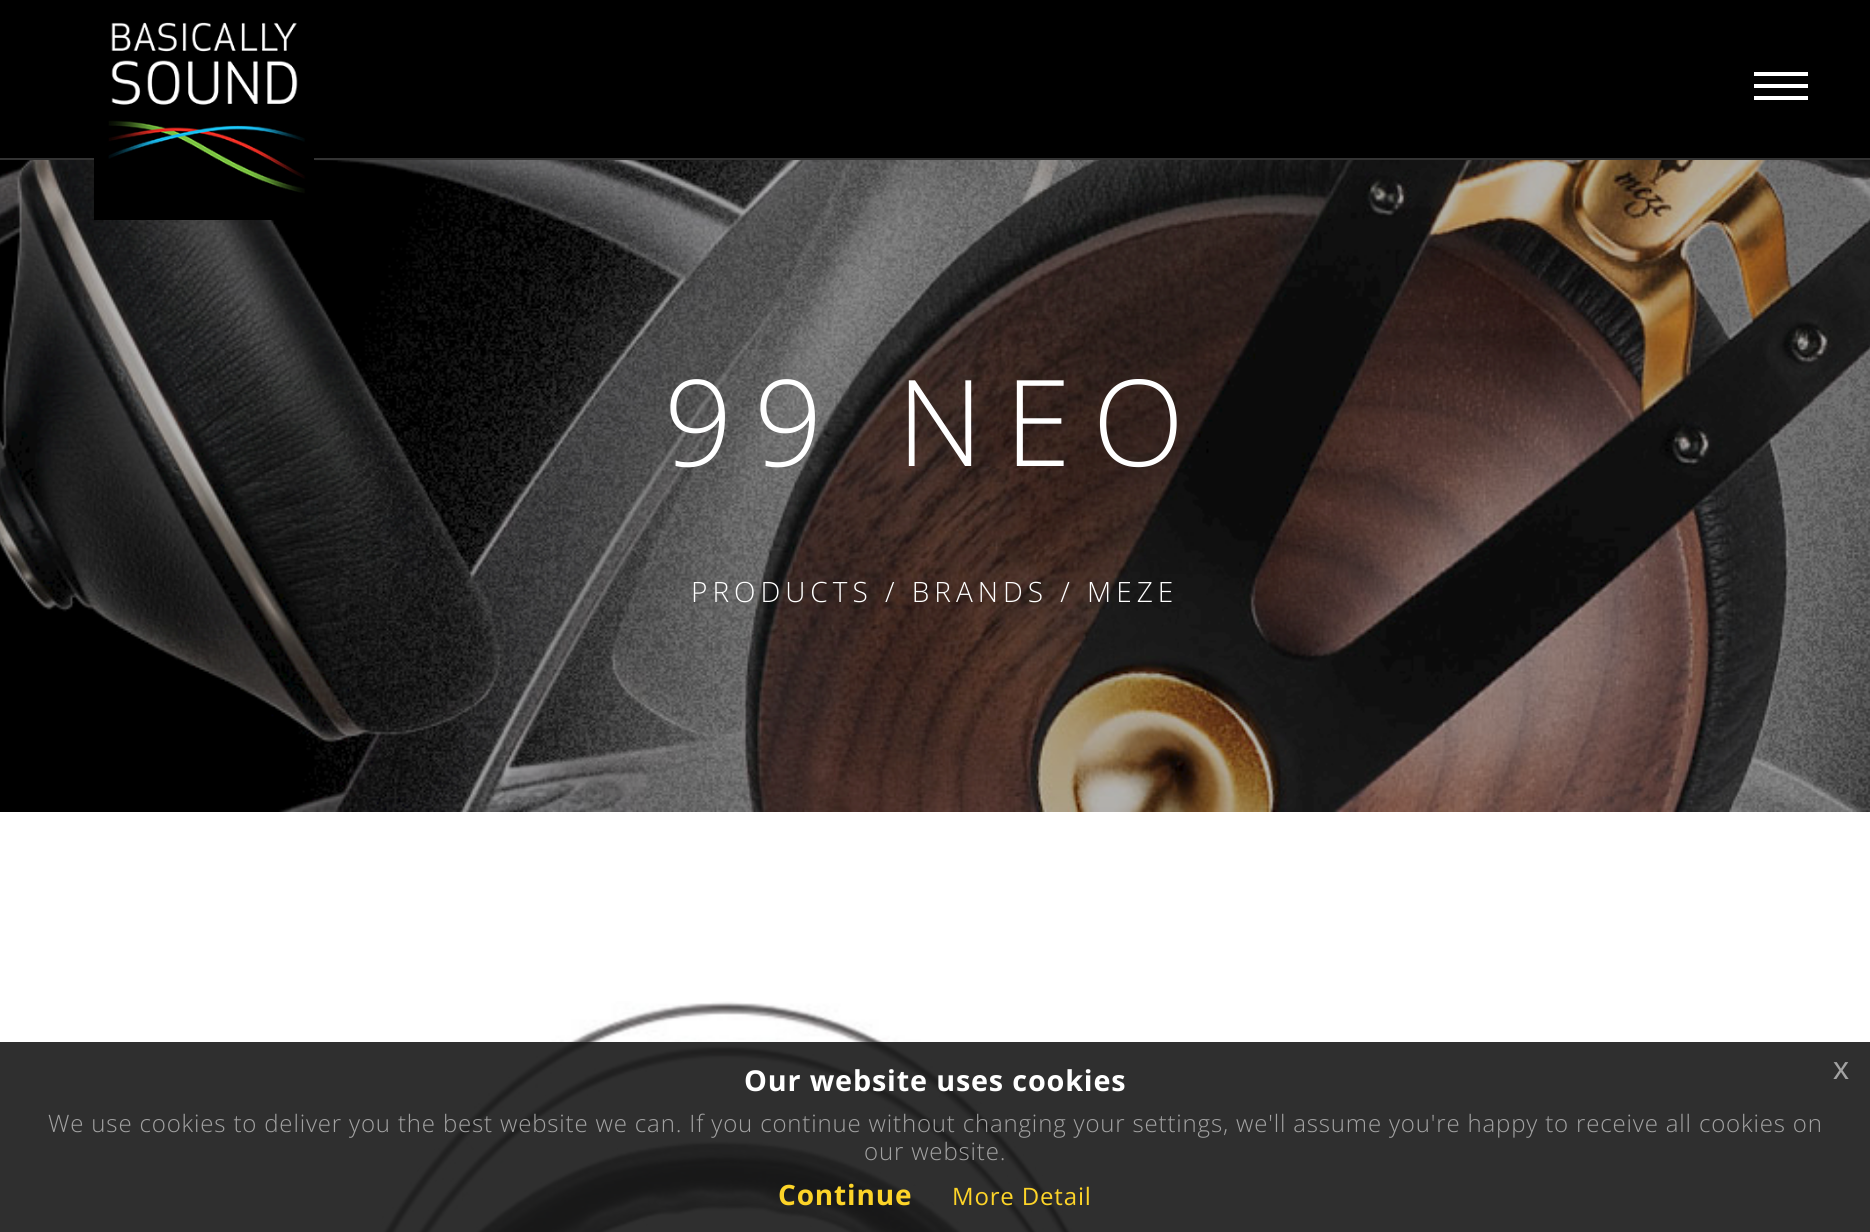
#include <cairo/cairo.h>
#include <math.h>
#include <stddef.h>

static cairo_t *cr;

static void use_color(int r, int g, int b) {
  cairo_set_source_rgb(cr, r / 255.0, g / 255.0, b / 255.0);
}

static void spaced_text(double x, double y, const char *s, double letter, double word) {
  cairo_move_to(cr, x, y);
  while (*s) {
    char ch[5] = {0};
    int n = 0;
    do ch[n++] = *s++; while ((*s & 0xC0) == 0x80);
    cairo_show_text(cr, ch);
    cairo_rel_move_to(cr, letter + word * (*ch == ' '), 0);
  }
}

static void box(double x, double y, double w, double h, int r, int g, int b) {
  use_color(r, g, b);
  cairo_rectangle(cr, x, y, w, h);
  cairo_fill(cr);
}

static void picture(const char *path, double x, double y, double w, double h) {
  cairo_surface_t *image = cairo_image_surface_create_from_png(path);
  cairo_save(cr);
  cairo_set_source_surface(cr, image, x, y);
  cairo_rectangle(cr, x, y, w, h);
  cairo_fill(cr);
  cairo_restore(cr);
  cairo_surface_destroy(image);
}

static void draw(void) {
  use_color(255, 255, 255);
  cairo_paint(cr);
  box(0, 0, 1870, 158, 0, 0, 0);
  box(0, 158, 1870, 2, 51, 51, 51);
  picture("img_02.png", 0, 160, 1870, 652);
  picture("img_01.png", 94, 22, 220, 198);
  box(1754, 72, 54, 4, 255, 255, 255);
  box(1754, 84, 54, 4, 255, 255, 255);
  box(1754, 96, 54, 4, 255, 255, 255);
  picture("img_03.png", 380, 1001, 699, 231);
  cairo_set_source_rgba(cr, 0.098, 0.098, 0.098, 0.9);
  cairo_rectangle(cr, 0, 1042, 1870, 190);
  cairo_fill(cr);
  cairo_select_font_face(cr, "Open Sans Light", CAIRO_FONT_SLANT_NORMAL, CAIRO_FONT_WEIGHT_NORMAL);
  cairo_set_font_size(cr, 120);
  use_color(255, 255, 255);
  spaced_text(664, 466, "99 NEO", 21.5, 0);
  cairo_set_font_size(cr, 28);
  spaced_text(691, 602, "PRODUCTS / BRANDS / MEZE", 5, 0);
  cairo_select_font_face(cr, "Open Sans", CAIRO_FONT_SLANT_NORMAL, CAIRO_FONT_WEIGHT_BOLD);
  cairo_set_font_size(cr, 28.75);
  spaced_text(744, 1091, "Our website uses cookies", 0.84, 0);
  cairo_select_font_face(cr, "Liberation Sans", CAIRO_FONT_SLANT_NORMAL, CAIRO_FONT_WEIGHT_NORMAL);
  cairo_set_font_size(cr, 32);
  use_color(162, 162, 162);
  spaced_text(1833, 1079, "x", 0.84, 0);
  cairo_select_font_face(cr, "Open Sans Light", CAIRO_FONT_SLANT_NORMAL, CAIRO_FONT_WEIGHT_NORMAL);
  cairo_set_font_size(cr, 24);
  spaced_text(48, 1132, "We use cookies to deliver you the best website we can. If you continue without changing your settings, we'll assume you're happy to receive all cookies on", 0.84, 0);
  spaced_text(864, 1160, "our website.", 0.84, 0);
  cairo_select_font_face(cr, "Open Sans", CAIRO_FONT_SLANT_NORMAL, CAIRO_FONT_WEIGHT_BOLD);
  cairo_set_font_size(cr, 28);
  use_color(253, 212, 40);
  spaced_text(778, 1205, "Continue", 0.84, 0);
  cairo_select_font_face(cr, "Open Sans", CAIRO_FONT_SLANT_NORMAL, CAIRO_FONT_WEIGHT_NORMAL);
  cairo_set_font_size(cr, 24);
  spaced_text(952, 1205, "More Detail", 0.84, 0);
}

int main(void) {
  cairo_surface_t *surface = cairo_image_surface_create(CAIRO_FORMAT_RGB24, 1870, 1232);
  cr = cairo_create(surface);
  cairo_font_options_t *options = cairo_font_options_create();
  cairo_font_options_set_hint_metrics(options, CAIRO_HINT_METRICS_OFF);
  cairo_font_options_set_hint_style(options, CAIRO_HINT_STYLE_NONE);
  cairo_set_font_options(cr, options);
  cairo_set_miter_limit(cr, 4);
  draw();
  cairo_surface_write_to_png(surface, "out.png");
  cairo_font_options_destroy(options);
  cairo_destroy(cr);
  cairo_surface_destroy(surface);
  return 0;
}
